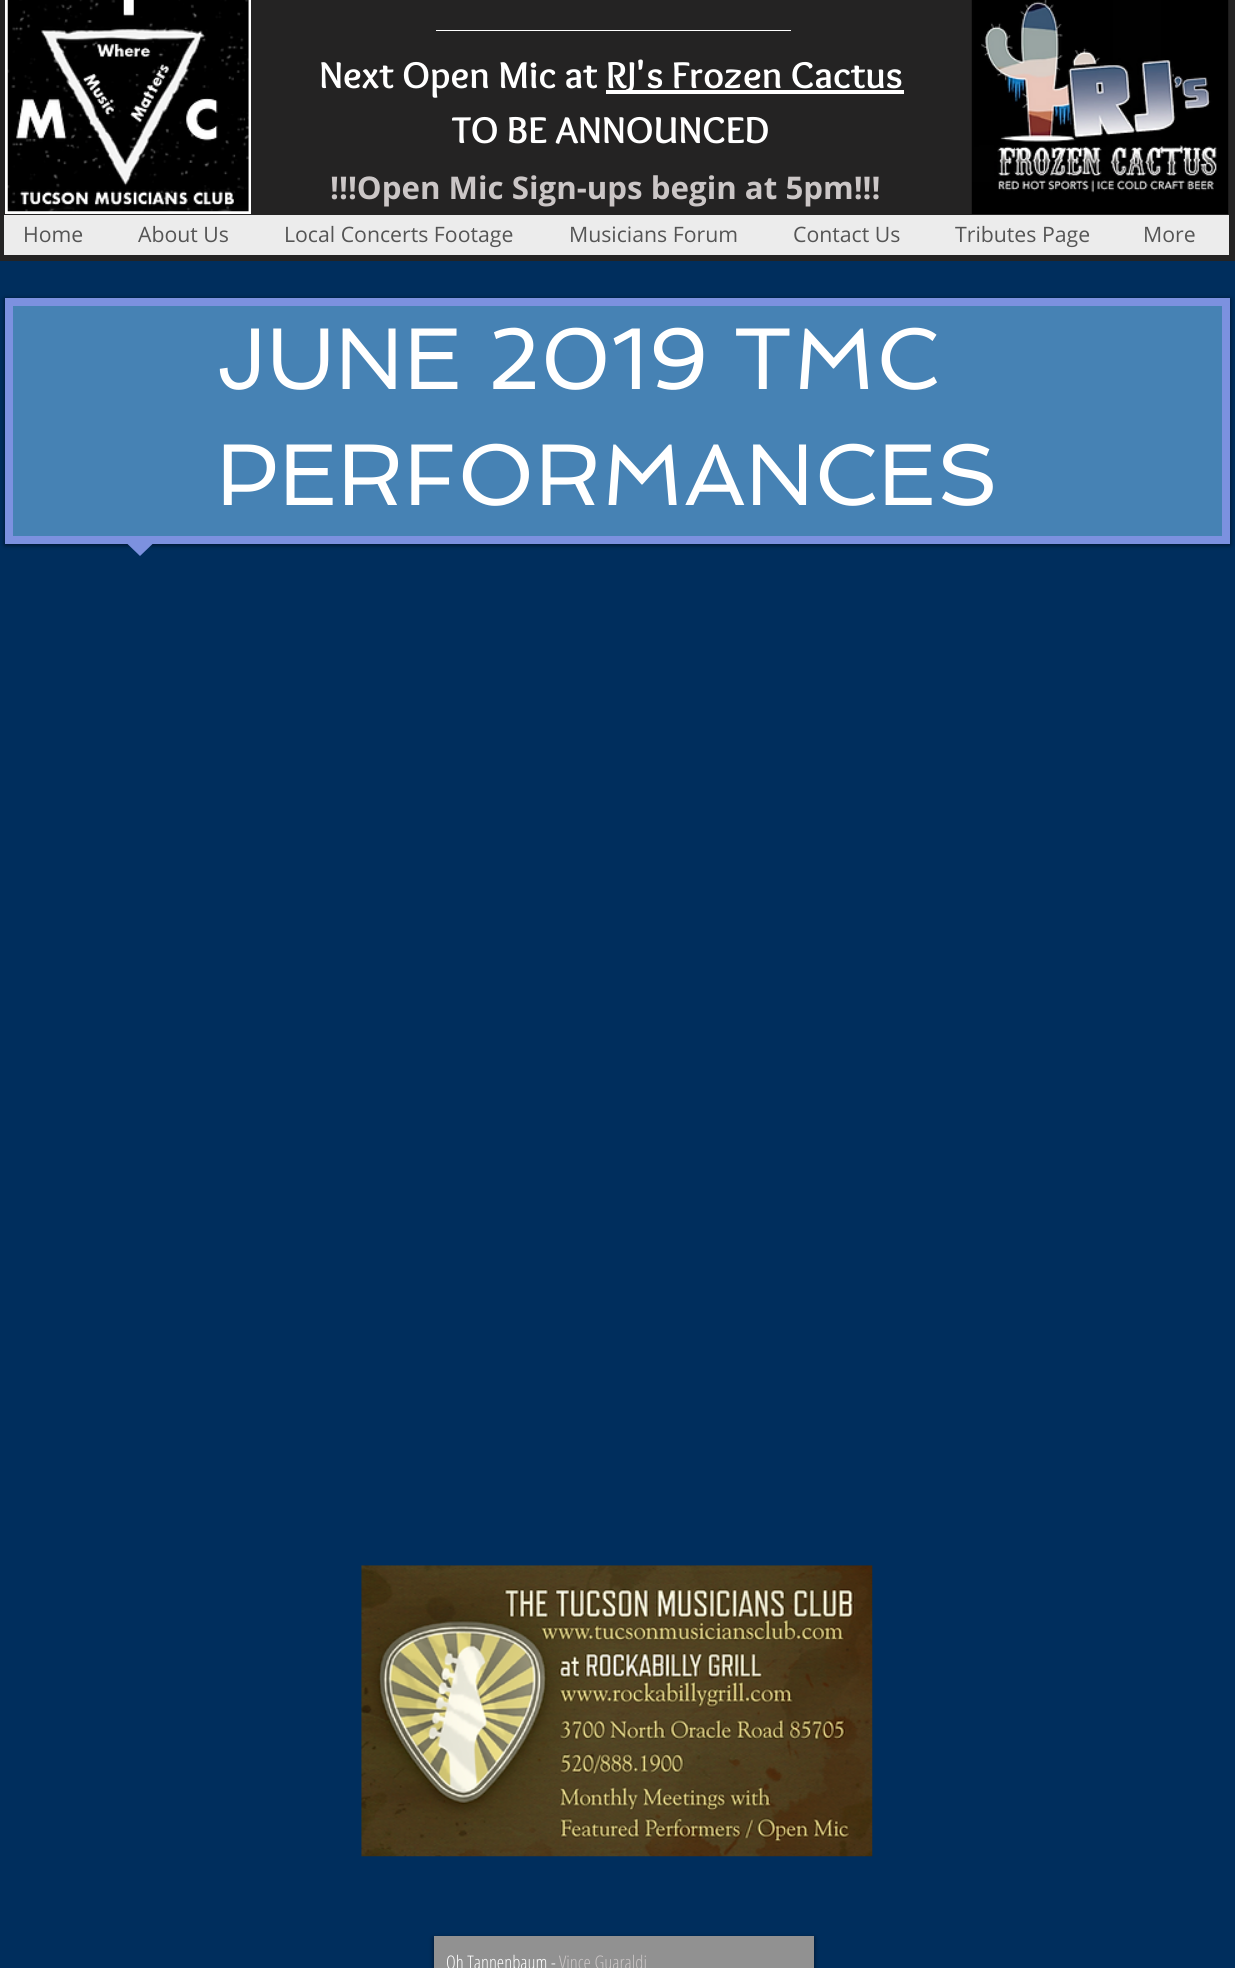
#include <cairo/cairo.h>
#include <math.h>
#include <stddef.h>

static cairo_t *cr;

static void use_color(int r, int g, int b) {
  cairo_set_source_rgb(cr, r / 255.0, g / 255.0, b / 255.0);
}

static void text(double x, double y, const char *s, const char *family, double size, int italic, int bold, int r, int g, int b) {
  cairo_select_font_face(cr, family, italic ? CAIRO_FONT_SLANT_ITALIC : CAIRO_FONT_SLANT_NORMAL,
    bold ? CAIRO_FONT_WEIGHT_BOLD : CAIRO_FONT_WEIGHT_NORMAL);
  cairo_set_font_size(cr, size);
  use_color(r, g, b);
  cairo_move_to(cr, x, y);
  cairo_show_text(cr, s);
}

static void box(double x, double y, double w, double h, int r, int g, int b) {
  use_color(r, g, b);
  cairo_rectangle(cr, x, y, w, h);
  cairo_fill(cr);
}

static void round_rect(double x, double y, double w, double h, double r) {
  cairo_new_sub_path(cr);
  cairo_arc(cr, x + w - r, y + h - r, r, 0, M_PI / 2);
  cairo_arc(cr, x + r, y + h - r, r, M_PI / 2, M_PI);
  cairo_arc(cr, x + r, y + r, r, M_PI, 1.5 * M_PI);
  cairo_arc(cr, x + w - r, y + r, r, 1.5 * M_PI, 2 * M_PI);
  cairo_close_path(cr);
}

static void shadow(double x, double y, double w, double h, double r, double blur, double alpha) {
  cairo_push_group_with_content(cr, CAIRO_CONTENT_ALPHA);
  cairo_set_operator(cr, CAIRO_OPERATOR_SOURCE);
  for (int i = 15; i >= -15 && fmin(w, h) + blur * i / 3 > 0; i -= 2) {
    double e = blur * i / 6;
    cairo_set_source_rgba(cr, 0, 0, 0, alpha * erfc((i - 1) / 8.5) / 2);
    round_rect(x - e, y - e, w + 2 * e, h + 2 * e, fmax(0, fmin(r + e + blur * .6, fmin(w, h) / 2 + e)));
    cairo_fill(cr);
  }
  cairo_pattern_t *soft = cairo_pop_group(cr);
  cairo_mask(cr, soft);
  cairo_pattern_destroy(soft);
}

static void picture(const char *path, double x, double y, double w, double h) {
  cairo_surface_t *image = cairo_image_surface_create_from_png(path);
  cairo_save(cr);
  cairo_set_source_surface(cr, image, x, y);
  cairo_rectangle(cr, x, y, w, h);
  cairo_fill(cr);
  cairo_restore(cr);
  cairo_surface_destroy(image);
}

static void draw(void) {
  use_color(0, 46, 93);
  cairo_paint(cr);
  box(0, 0, 1235, 261, 36, 35, 35);
  box(5, 0, 246, 214, 255, 255, 255);
  picture("img_01.png", 7, 0, 242, 212);
  box(436, 30, 355, 1, 255, 255, 255);
  picture("img_02.png", 971, 0, 258, 214);
  box(606, 90, 298, 4, 255, 255, 255);
  box(4, 215, 1225, 40, 236, 236, 236);
  use_color(0, 0, 0);
  shadow(5, 299, 1225, 246, 0, 2.5, 0.6);
  use_color(70, 130, 180);
  cairo_rectangle(cr, 9, 302, 1217, 238);
  cairo_fill_preserve(cr);
  use_color(124, 145, 223);
  cairo_set_line_width(cr, 8);
  cairo_stroke(cr);
  cairo_new_path(cr);
  cairo_move_to(cr, 127.5, 544);
  cairo_line_to(cr, 152.5, 544);
  cairo_line_to(cr, 140, 556);
  cairo_close_path(cr);
  cairo_fill(cr);
  picture("img_03.png", 361, 1565, 512, 292);
  use_color(0, 0, 0);
  shadow(434, 1938, 380, 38, 0, 2.5, 0.6);
  box(434, 1936, 380, 32, 145, 145, 145);
  text(319, 88, "Next Open Mic at", "Overlock", 38.75, 0, 1, 255, 255, 255);
  text(606, 88, "RJ's Frozen Cactus", "Overlock", 38.75, 0, 1, 255, 255, 255);
  text(452, 143, "TO BE ANNOUNCED", "Overlock", 38.75, 0, 1, 255, 255, 255);
  text(330, 199, "!!!Open Mic Sign-ups begin at 5pm!!!", "Open Sans", 31.25, 0, 1, 203, 198, 198);
  text(23, 242, "Home", "Open Sans", 21.25, 0, 0, 85, 85, 85);
  text(138, 242, "About Us", "Open Sans", 21.25, 0, 0, 85, 85, 85);
  text(284, 242, "Local Concerts Footage", "Open Sans", 21.25, 0, 0, 85, 85, 85);
  text(569, 242, "Musicians Forum", "Open Sans", 21.25, 0, 0, 85, 85, 85);
  text(793, 242, "Contact Us", "Open Sans", 21.25, 0, 0, 85, 85, 85);
  text(955, 242, "Tributes Page", "Open Sans", 21.25, 0, 0, 85, 85, 85);
  text(1143, 242, "More", "Open Sans", 21.25, 0, 0, 85, 85, 85);
  text(216, 389, "JUNE 2019 TMC", "Spinnaker", 87.5, 0, 0, 255, 255, 255);
  text(216, 505, "PERFORMANCES", "Spinnaker", 87.5, 0, 0, 255, 255, 255);
  text(446, 1969, "Oh Tannenbaum -", "Open Sans Condensed Light", 18.75, 0, 0, 255, 255, 255);
  text(559, 1969, "Vince Guaraldi", "Open Sans Condensed Light", 18.75, 0, 0, 203, 198, 198);
}

int main(void) {
  cairo_surface_t *surface = cairo_image_surface_create(CAIRO_FORMAT_RGB24, 1235, 1968);
  cr = cairo_create(surface);
  cairo_font_options_t *options = cairo_font_options_create();
  cairo_font_options_set_hint_metrics(options, CAIRO_HINT_METRICS_OFF);
  cairo_font_options_set_hint_style(options, CAIRO_HINT_STYLE_NONE);
  cairo_set_font_options(cr, options);
  cairo_set_miter_limit(cr, 4);
  draw();
  cairo_surface_write_to_png(surface, "out.png");
  cairo_font_options_destroy(options);
  cairo_destroy(cr);
  cairo_surface_destroy(surface);
  return 0;
}
